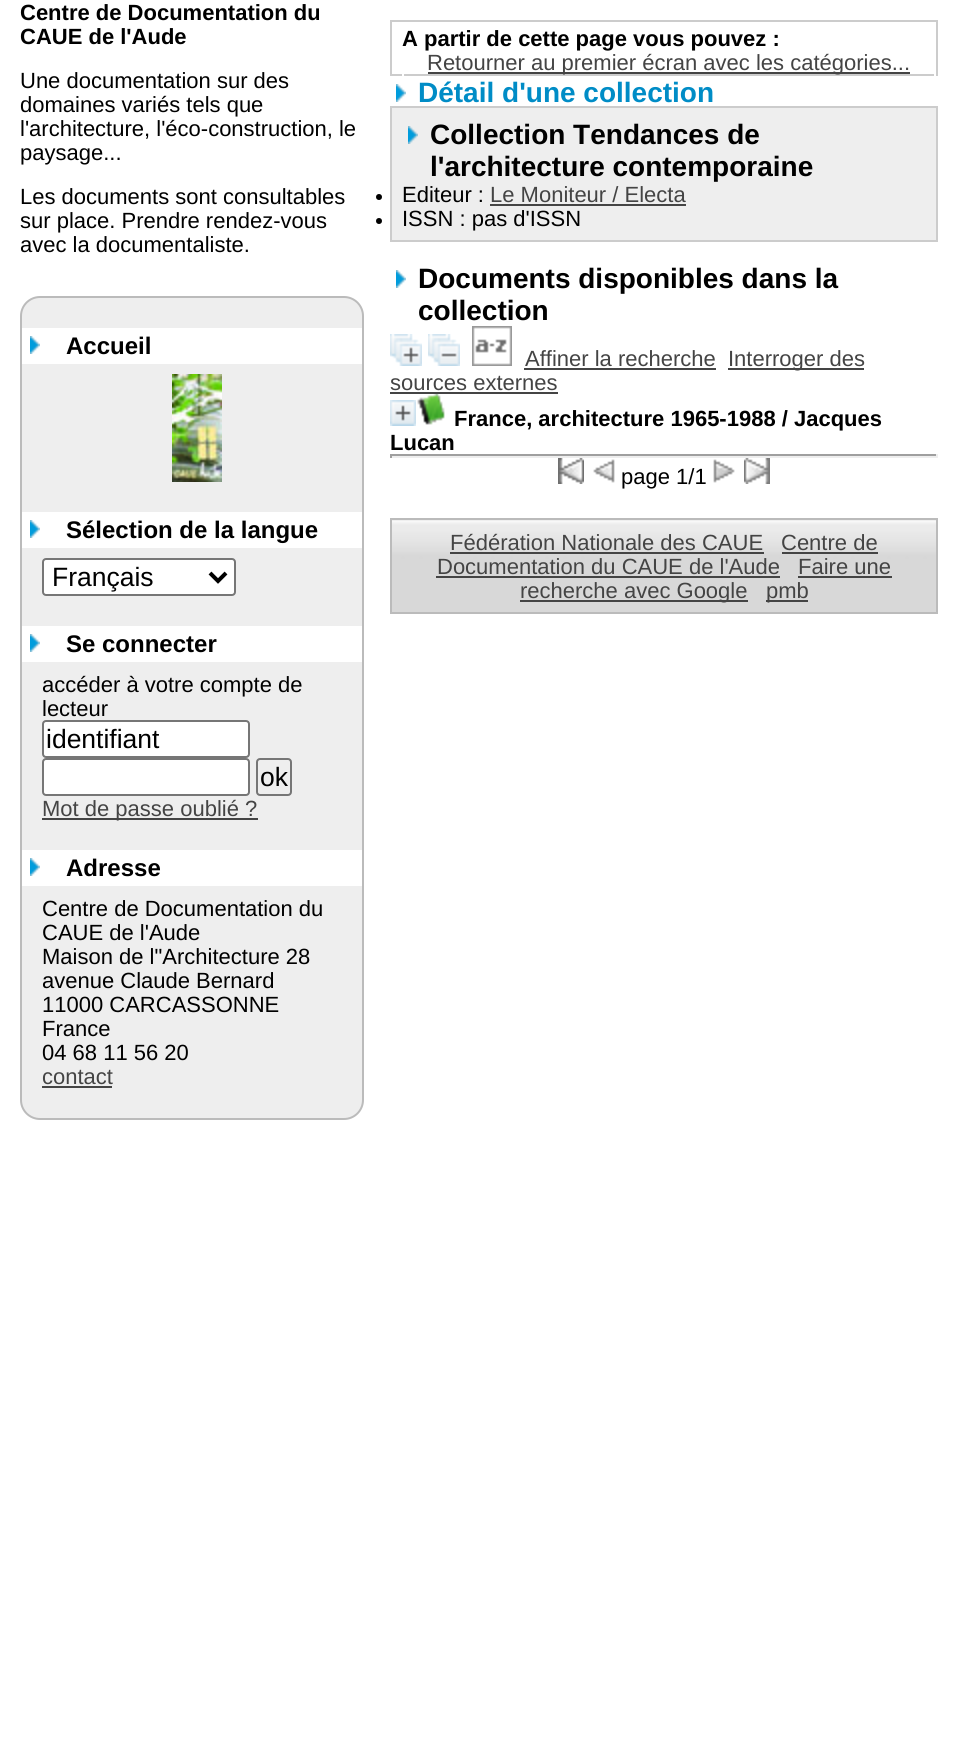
#include <cairo/cairo.h>
#include <math.h>
#include <stddef.h>

static cairo_t *cr;

static void use_color(int r, int g, int b) {
  cairo_set_source_rgb(cr, r / 255.0, g / 255.0, b / 255.0);
}

static void text(double x, double y, const char *s, const char *family, double size, int italic, int bold, int r, int g, int b) {
  cairo_select_font_face(cr, family, italic ? CAIRO_FONT_SLANT_ITALIC : CAIRO_FONT_SLANT_NORMAL,
    bold ? CAIRO_FONT_WEIGHT_BOLD : CAIRO_FONT_WEIGHT_NORMAL);
  cairo_set_font_size(cr, size);
  use_color(r, g, b);
  cairo_move_to(cr, x, y);
  cairo_show_text(cr, s);
}

static void box(double x, double y, double w, double h, int r, int g, int b) {
  use_color(r, g, b);
  cairo_rectangle(cr, x, y, w, h);
  cairo_fill(cr);
}

static void round_rect(double x, double y, double w, double h, double r) {
  cairo_new_sub_path(cr);
  cairo_arc(cr, x + w - r, y + h - r, r, 0, M_PI / 2);
  cairo_arc(cr, x + r, y + h - r, r, M_PI / 2, M_PI);
  cairo_arc(cr, x + r, y + r, r, M_PI, 1.5 * M_PI);
  cairo_arc(cr, x + w - r, y + r, r, 1.5 * M_PI, 2 * M_PI);
  cairo_close_path(cr);
}

static void picture(const char *path, double x, double y, double w, double h) {
  cairo_surface_t *image = cairo_image_surface_create_from_png(path);
  cairo_save(cr);
  cairo_set_source_surface(cr, image, x, y);
  cairo_rectangle(cr, x, y, w, h);
  cairo_fill(cr);
  cairo_restore(cr);
  cairo_surface_destroy(image);
}

static void draw(void) {
  use_color(255, 255, 255);
  cairo_paint(cr);
  cairo_rectangle(cr, 391, 21, 546, 54);
  use_color(204, 204, 204);
  cairo_stroke(cr);
  box(934, 74, 2, 2, 255, 255, 255);
  box(402, 74, 2, 2, 255, 255, 255);
  box(428, 72, 482, 2, 68, 68, 68);
  picture("img_01.png", 396, 84, 10, 18);
  use_color(238, 238, 238);
  cairo_rectangle(cr, 391, 107, 546, 134);
  cairo_fill_preserve(cr);
  use_color(204, 204, 204);
  cairo_stroke(cr);
  picture("img_02.png", 408, 126, 10, 18);
  use_color(0, 0, 0);
  cairo_arc(cr, 379, 197, 3, 0, 2 * M_PI);
  cairo_fill(cr);
  box(490, 204, 196, 2, 68, 68, 68);
  use_color(0, 0, 0);
  cairo_arc(cr, 379, 221, 3, 0, 2 * M_PI);
  cairo_fill(cr);
  picture("img_01.png", 396, 270, 10, 18);
  picture("img_03.png", 390, 334, 32, 32);
  picture("img_04.png", 428, 334, 32, 32);
  picture("img_05.png", 472, 326, 40, 40);
  box(524, 368, 192, 2, 68, 68, 68);
  box(728, 368, 136, 2, 68, 68, 68);
  box(390, 392, 168, 2, 68, 68, 68);
  picture("img_06.png", 390, 400, 26, 26);
  picture("img_07.png", 417, 394, 28, 31);
  box(390, 454, 548, 2, 159, 159, 159);
  box(936, 454, 2, 4, 238, 238, 238);
  box(390, 456, 548, 2, 238, 238, 238);
  box(390, 454, 2, 4, 159, 159, 159);
  picture("img_08.png", 558, 458, 26, 26);
  picture("img_09.png", 593, 459, 22, 24);
  picture("img_10.png", 713, 459, 22, 24);
  picture("img_11.png", 744, 458, 26, 26);
  picture("img_12.png", 392, 520, 544, 92);
  cairo_rectangle(cr, 391, 519, 546, 94);
  use_color(187, 187, 187);
  cairo_stroke(cr);
  box(450, 552, 314, 2, 68, 68, 68);
  box(782, 552, 96, 2, 68, 68, 68);
  box(436, 576, 344, 2, 68, 68, 68);
  box(798, 576, 94, 2, 68, 68, 68);
  box(520, 600, 228, 2, 68, 68, 68);
  box(766, 600, 42, 2, 68, 68, 68);
  use_color(238, 238, 238);
  round_rect(21, 297, 342, 822, 19);
  cairo_fill_preserve(cr);
  use_color(187, 187, 187);
  cairo_stroke(cr);
  box(22, 328, 340, 36, 255, 255, 255);
  picture("img_01.png", 30, 336, 10, 18);
  picture("img_13.png", 172, 374, 50, 108);
  box(22, 512, 340, 36, 255, 255, 255);
  picture("img_01.png", 30, 520, 10, 18);
  round_rect(43, 559, 192, 36, 3);
  cairo_fill_preserve(cr);
  use_color(118, 118, 118);
  cairo_stroke(cr);
  cairo_new_path(cr);
  cairo_move_to(cr, 210, 573);
  cairo_line_to(cr, 218, 581);
  cairo_line_to(cr, 226, 573);
  use_color(0, 0, 0);
  cairo_set_line_width(cr, 4);
  cairo_stroke(cr);
  box(22, 626, 340, 36, 255, 255, 255);
  picture("img_01.png", 30, 634, 10, 18);
  round_rect(43, 721, 206, 36, 3);
  cairo_fill_preserve(cr);
  use_color(118, 118, 118);
  cairo_set_line_width(cr, 2);
  cairo_stroke(cr);
  use_color(255, 255, 255);
  round_rect(43, 759, 206, 36, 3);
  cairo_fill_preserve(cr);
  use_color(118, 118, 118);
  cairo_stroke(cr);
  round_rect(257, 759, 34, 36, 3);
  cairo_stroke(cr);
  box(42, 818, 216, 2, 68, 68, 68);
  box(22, 850, 340, 36, 255, 255, 255);
  picture("img_01.png", 30, 858, 10, 18);
  box(42, 1086, 70, 2, 68, 68, 68);
  text(20, 20, "Centre de Documentation du", "Liberation Sans", 22, 0, 1, 0, 0, 0);
  text(20, 44, "CAUE de l'Aude", "Liberation Sans", 22, 0, 1, 0, 0, 0);
  text(20, 88, "Une documentation sur des", "Liberation Sans", 22, 0, 0, 0, 0, 0);
  text(20, 112, "domaines variés tels que", "Liberation Sans", 22, 0, 0, 0, 0, 0);
  text(20, 136, "l'architecture, l'éco-construction, le", "Liberation Sans", 22, 0, 0, 0, 0, 0);
  text(20, 160, "paysage...", "Liberation Sans", 22, 0, 0, 0, 0, 0);
  text(20, 204, "Les documents sont consultables", "Liberation Sans", 22, 0, 0, 0, 0, 0);
  text(20, 228, "sur place. Prendre rendez-vous", "Liberation Sans", 22, 0, 0, 0, 0, 0);
  text(20, 252, "avec la documentaliste.", "Liberation Sans", 22, 0, 0, 0, 0, 0);
  text(402, 46, "A partir de cette page vous pouvez :", "Liberation Sans", 22, 0, 1, 0, 0, 0);
  text(427, 70, "Retourner au premier écran avec les catégories...", "Liberation Sans", 22, 0, 0, 68, 68, 68);
  text(418, 102, "Détail d'une collection", "Liberation Sans", 28, 0, 1, 0, 140, 198);
  text(430, 144, "Collection Tendances de", "Liberation Sans", 28, 0, 1, 0, 0, 0);
  text(430, 176, "l'architecture contemporaine", "Liberation Sans", 28, 0, 1, 0, 0, 0);
  text(402, 202, "Editeur :", "Liberation Sans", 22, 0, 0, 0, 0, 0);
  text(490, 202, "Le Moniteur / Electa", "Liberation Sans", 22, 0, 0, 68, 68, 68);
  text(402, 226, "ISSN : pas d'ISSN", "Liberation Sans", 22, 0, 0, 0, 0, 0);
  text(418, 288, "Documents disponibles dans la", "Liberation Sans", 28, 0, 1, 0, 0, 0);
  text(418, 320, "collection", "Liberation Sans", 28, 0, 1, 0, 0, 0);
  text(525, 366, "Affiner la recherche", "Liberation Sans", 22, 0, 0, 68, 68, 68);
  text(728, 366, "Interroger des", "Liberation Sans", 22, 0, 0, 68, 68, 68);
  text(390, 390, "sources externes", "Liberation Sans", 22, 0, 0, 68, 68, 68);
  text(454, 426, "France, architecture 1965-1988 / Jacques", "Liberation Sans", 22, 0, 1, 0, 0, 0);
  text(390, 450, "Lucan", "Liberation Sans", 22, 0, 1, 0, 0, 0);
  text(621, 484, "page 1/1", "Liberation Sans", 22, 0, 0, 0, 0, 0);
  text(450, 550, "Fédération Nationale des CAUE", "Liberation Sans", 22, 0, 0, 68, 68, 68);
  text(781, 550, "Centre de", "Liberation Sans", 22, 0, 0, 68, 68, 68);
  text(437, 574, "Documentation du CAUE de l'Aude", "Liberation Sans", 22, 0, 0, 68, 68, 68);
  text(798, 574, "Faire une", "Liberation Sans", 22, 0, 0, 68, 68, 68);
  text(520, 598, "recherche avec Google", "Liberation Sans", 22, 0, 0, 68, 68, 68);
  text(766, 598, "pmb", "Liberation Sans", 22, 0, 0, 68, 68, 68);
  text(66, 354, "Accueil", "Liberation Sans", 24, 0, 1, 0, 0, 0);
  text(66, 538, "Sélection de la langue", "Liberation Sans", 24, 0, 1, 0, 0, 0);
  text(52, 586, "Français", "Liberation Sans", 26.5, 0, 0, 0, 0, 0);
  text(66, 652, "Se connecter", "Liberation Sans", 24, 0, 1, 0, 0, 0);
  text(42, 692, "accéder à votre compte de", "Liberation Sans", 22, 0, 0, 0, 0, 0);
  text(42, 716, "lecteur", "Liberation Sans", 22, 0, 0, 0, 0, 0);
  text(46, 748, "identifiant", "Liberation Sans", 26.5, 0, 0, 0, 0, 0);
  text(260, 786, "ok", "Liberation Sans", 26.5, 0, 0, 0, 0, 0);
  text(42, 816, "Mot de passe oublié ?", "Liberation Sans", 22, 0, 0, 68, 68, 68);
  text(66, 876, "Adresse", "Liberation Sans", 24, 0, 1, 0, 0, 0);
  text(42, 916, "Centre de Documentation du", "Liberation Sans", 22, 0, 0, 0, 0, 0);
  text(42, 940, "CAUE de l'Aude", "Liberation Sans", 22, 0, 0, 0, 0, 0);
  text(42, 964, "Maison de l\"Architecture 28", "Liberation Sans", 22, 0, 0, 0, 0, 0);
  text(42, 988, "avenue Claude Bernard", "Liberation Sans", 22, 0, 0, 0, 0, 0);
  text(42, 1012, "11000 CARCASSONNE", "Liberation Sans", 22, 0, 0, 0, 0, 0);
  text(42, 1036, "France", "Liberation Sans", 22, 0, 0, 0, 0, 0);
  text(42, 1060, "04 68 11 56 20", "Liberation Sans", 22, 0, 0, 0, 0, 0);
  text(42, 1084, "contact", "Liberation Sans", 22, 0, 0, 68, 68, 68);
}

int main(void) {
  cairo_surface_t *surface = cairo_image_surface_create(CAIRO_FORMAT_RGB24, 957, 1750);
  cr = cairo_create(surface);
  cairo_font_options_t *options = cairo_font_options_create();
  cairo_font_options_set_hint_metrics(options, CAIRO_HINT_METRICS_OFF);
  cairo_font_options_set_hint_style(options, CAIRO_HINT_STYLE_NONE);
  cairo_set_font_options(cr, options);
  cairo_set_miter_limit(cr, 4);
  draw();
  cairo_surface_write_to_png(surface, "out.png");
  cairo_font_options_destroy(options);
  cairo_destroy(cr);
  cairo_surface_destroy(surface);
  return 0;
}
